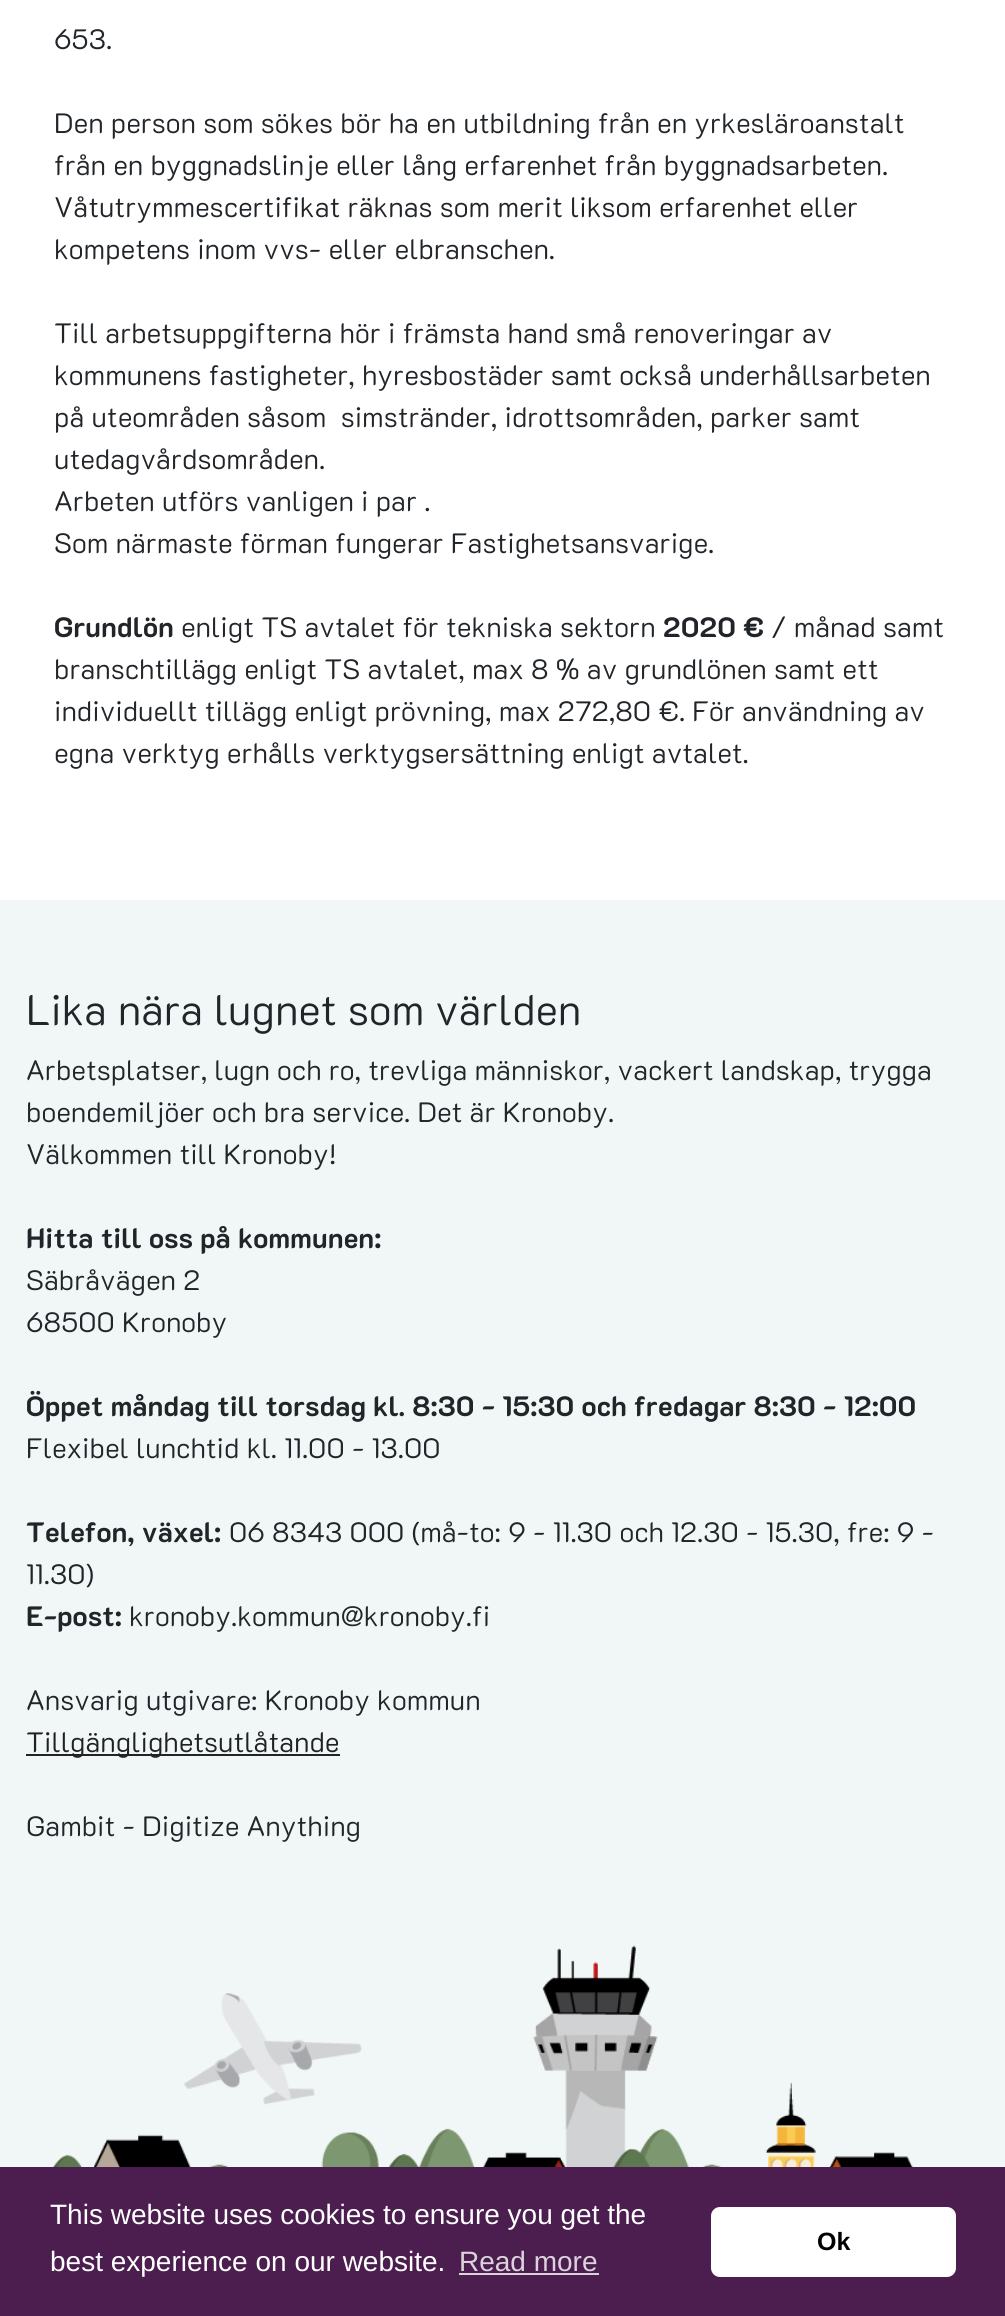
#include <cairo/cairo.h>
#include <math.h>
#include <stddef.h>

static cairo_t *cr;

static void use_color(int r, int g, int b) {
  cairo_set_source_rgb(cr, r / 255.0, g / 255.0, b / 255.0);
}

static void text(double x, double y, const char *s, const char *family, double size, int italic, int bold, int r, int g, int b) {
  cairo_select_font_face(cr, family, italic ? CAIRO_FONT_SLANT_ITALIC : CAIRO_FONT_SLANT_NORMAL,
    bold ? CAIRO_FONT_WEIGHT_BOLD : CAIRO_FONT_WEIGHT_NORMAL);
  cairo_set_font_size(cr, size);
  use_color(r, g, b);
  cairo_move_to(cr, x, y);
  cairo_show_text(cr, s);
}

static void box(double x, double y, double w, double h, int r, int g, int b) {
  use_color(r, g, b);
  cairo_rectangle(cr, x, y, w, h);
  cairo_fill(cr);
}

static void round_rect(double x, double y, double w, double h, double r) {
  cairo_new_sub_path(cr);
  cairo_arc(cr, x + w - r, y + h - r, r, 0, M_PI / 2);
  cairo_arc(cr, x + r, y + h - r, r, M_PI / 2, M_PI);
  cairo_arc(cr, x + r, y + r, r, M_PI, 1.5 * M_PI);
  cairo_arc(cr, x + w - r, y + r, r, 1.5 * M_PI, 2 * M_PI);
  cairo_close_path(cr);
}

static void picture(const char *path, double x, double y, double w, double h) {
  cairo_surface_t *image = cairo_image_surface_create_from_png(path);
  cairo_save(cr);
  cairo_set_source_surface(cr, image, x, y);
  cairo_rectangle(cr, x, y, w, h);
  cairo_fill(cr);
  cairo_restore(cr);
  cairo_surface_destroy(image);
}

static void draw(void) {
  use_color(255, 255, 255);
  cairo_paint(cr);
  box(0, 900, 1005, 1267, 241, 246, 246);
  box(26, 1754, 314, 2, 33, 37, 41);
  picture("img_01.png", 53, 1945, 860, 222);
  box(0, 2167, 1005, 149, 75, 30, 79);
  box(459, 2273, 140, 2, 219, 210, 220);
  use_color(255, 255, 255);
  round_rect(711, 2207, 245, 70, 9);
  cairo_fill(cr);
  text(54, 49, "653.", "K2D Light", 28, 0, 0, 33, 37, 41);
  text(54, 133, "Den person som sökes bör ha en utbildning från en yrkesläroanstalt", "K2D Light", 28, 0, 0, 33, 37, 41);
  text(54, 175, "från en byggnadslinje eller lång erfarenhet från byggnadsarbeten.", "K2D Light", 28, 0, 0, 33, 37, 41);
  text(54, 217, "Våtutrymmescertifikat räknas som merit liksom erfarenhet eller", "K2D Light", 28, 0, 0, 33, 37, 41);
  text(54, 259, "kompetens inom vvs- eller elbranschen.", "K2D Light", 28, 0, 0, 33, 37, 41);
  text(54, 343, "Till arbetsuppgifterna hör i främsta hand små renoveringar av", "K2D Light", 28, 0, 0, 33, 37, 41);
  text(54, 385, "kommunens fastigheter, hyresbostäder samt också underhållsarbeten", "K2D Light", 28, 0, 0, 33, 37, 41);
  text(54, 427, "på uteområden såsom  simstränder, idrottsområden, parker samt", "K2D Light", 28, 0, 0, 33, 37, 41);
  text(54, 469, "utedagvårdsområden.", "K2D Light", 28, 0, 0, 33, 37, 41);
  text(54, 511, "Arbeten utförs vanligen i par .", "K2D Light", 28, 0, 0, 33, 37, 41);
  text(54, 553, "Som närmaste förman fungerar Fastighetsansvarige.", "K2D Light", 28, 0, 0, 33, 37, 41);
  text(54, 637, "Grundlön", "K2D", 28, 0, 1, 33, 37, 41);
  text(181, 637, "enligt TS avtalet för tekniska sektorn", "K2D Light", 28, 0, 0, 33, 37, 41);
  text(663, 637, "2020 €", "K2D", 28, 0, 1, 33, 37, 41);
  text(771, 637, "/ månad samt", "K2D Light", 28, 0, 0, 33, 37, 41);
  text(54, 679, "branschtillägg enligt TS avtalet, max 8 % av grundlönen samt ett", "K2D Light", 28, 0, 0, 33, 37, 41);
  text(54, 721, "individuellt tillägg enligt prövning, max 272,80 €. För användning av", "K2D Light", 28, 0, 0, 33, 37, 41);
  text(54, 763, "egna verktyg erhålls verktygsersättning enligt avtalet.", "K2D Light", 28, 0, 0, 33, 37, 41);
  text(26, 1025, "Lika nära lugnet som världen", "K2D Light", 42.5, 0, 0, 33, 37, 41);
  text(26, 1080, "Arbetsplatser, lugn och ro, trevliga människor, vackert landskap, trygga", "K2D Light", 28, 0, 0, 33, 37, 41);
  text(26, 1122, "boendemiljöer och bra service. Det är Kronoby.", "K2D Light", 28, 0, 0, 33, 37, 41);
  text(26, 1164, "Välkommen till Kronoby!", "K2D Light", 28, 0, 0, 33, 37, 41);
  text(26, 1248, "Hitta till oss på kommunen:", "K2D", 28, 0, 1, 33, 37, 41);
  text(26, 1290, "Säbråvägen 2", "K2D Light", 28, 0, 0, 33, 37, 41);
  text(26, 1332, "68500 Kronoby", "K2D Light", 28, 0, 0, 33, 37, 41);
  text(26, 1416, "Öppet måndag till torsdag kl. 8:30 - 15:30 och fredagar 8:30 - 12:00", "K2D", 28, 0, 1, 33, 37, 41);
  text(26, 1458, "Flexibel lunchtid kl. 11.00 - 13.00", "K2D Light", 28, 0, 0, 33, 37, 41);
  text(26, 1542, "Telefon, växel:", "K2D", 28, 0, 1, 33, 37, 41);
  text(229, 1542, "06 8343 000 (må-to: 9 - 11.30 och 12.30 - 15.30, fre: 9 -", "K2D Light", 28, 0, 0, 33, 37, 41);
  text(26, 1584, "11.30)", "K2D Light", 28, 0, 0, 33, 37, 41);
  text(26, 1626, "E-post:", "K2D", 28, 0, 1, 33, 37, 41);
  text(129, 1626, "kronoby.kommun@kronoby.fi", "K2D Light", 28, 0, 0, 33, 37, 41);
  text(26, 1710, "Ansvarig utgivare: Kronoby kommun", "K2D Light", 28, 0, 0, 33, 37, 41);
  text(26, 1752, "Tillgänglighetsutlåtande", "K2D Light", 28, 0, 0, 33, 33, 33);
  text(26, 1836, "Gambit - Digitize Anything", "K2D Light", 28, 0, 0, 33, 37, 41);
  text(50, 2224, "This website uses cookies to ensure you get the", "Liberation Sans", 28, 0, 0, 255, 255, 255);
  text(50, 2271, "best experience on our website.", "Liberation Sans", 28, 0, 0, 255, 255, 255);
  text(459, 2271, "Read more", "Liberation Sans", 28, 0, 0, 219, 210, 220);
  text(817, 2250, "Ok", "Liberation Sans", 25, 0, 1, 0, 0, 0);
}

int main(void) {
  cairo_surface_t *surface = cairo_image_surface_create(CAIRO_FORMAT_RGB24, 1005, 2316);
  cr = cairo_create(surface);
  cairo_font_options_t *options = cairo_font_options_create();
  cairo_font_options_set_hint_metrics(options, CAIRO_HINT_METRICS_OFF);
  cairo_font_options_set_hint_style(options, CAIRO_HINT_STYLE_NONE);
  cairo_set_font_options(cr, options);
  cairo_set_miter_limit(cr, 4);
  draw();
  cairo_surface_write_to_png(surface, "out.png");
  cairo_font_options_destroy(options);
  cairo_destroy(cr);
  cairo_surface_destroy(surface);
  return 0;
}
